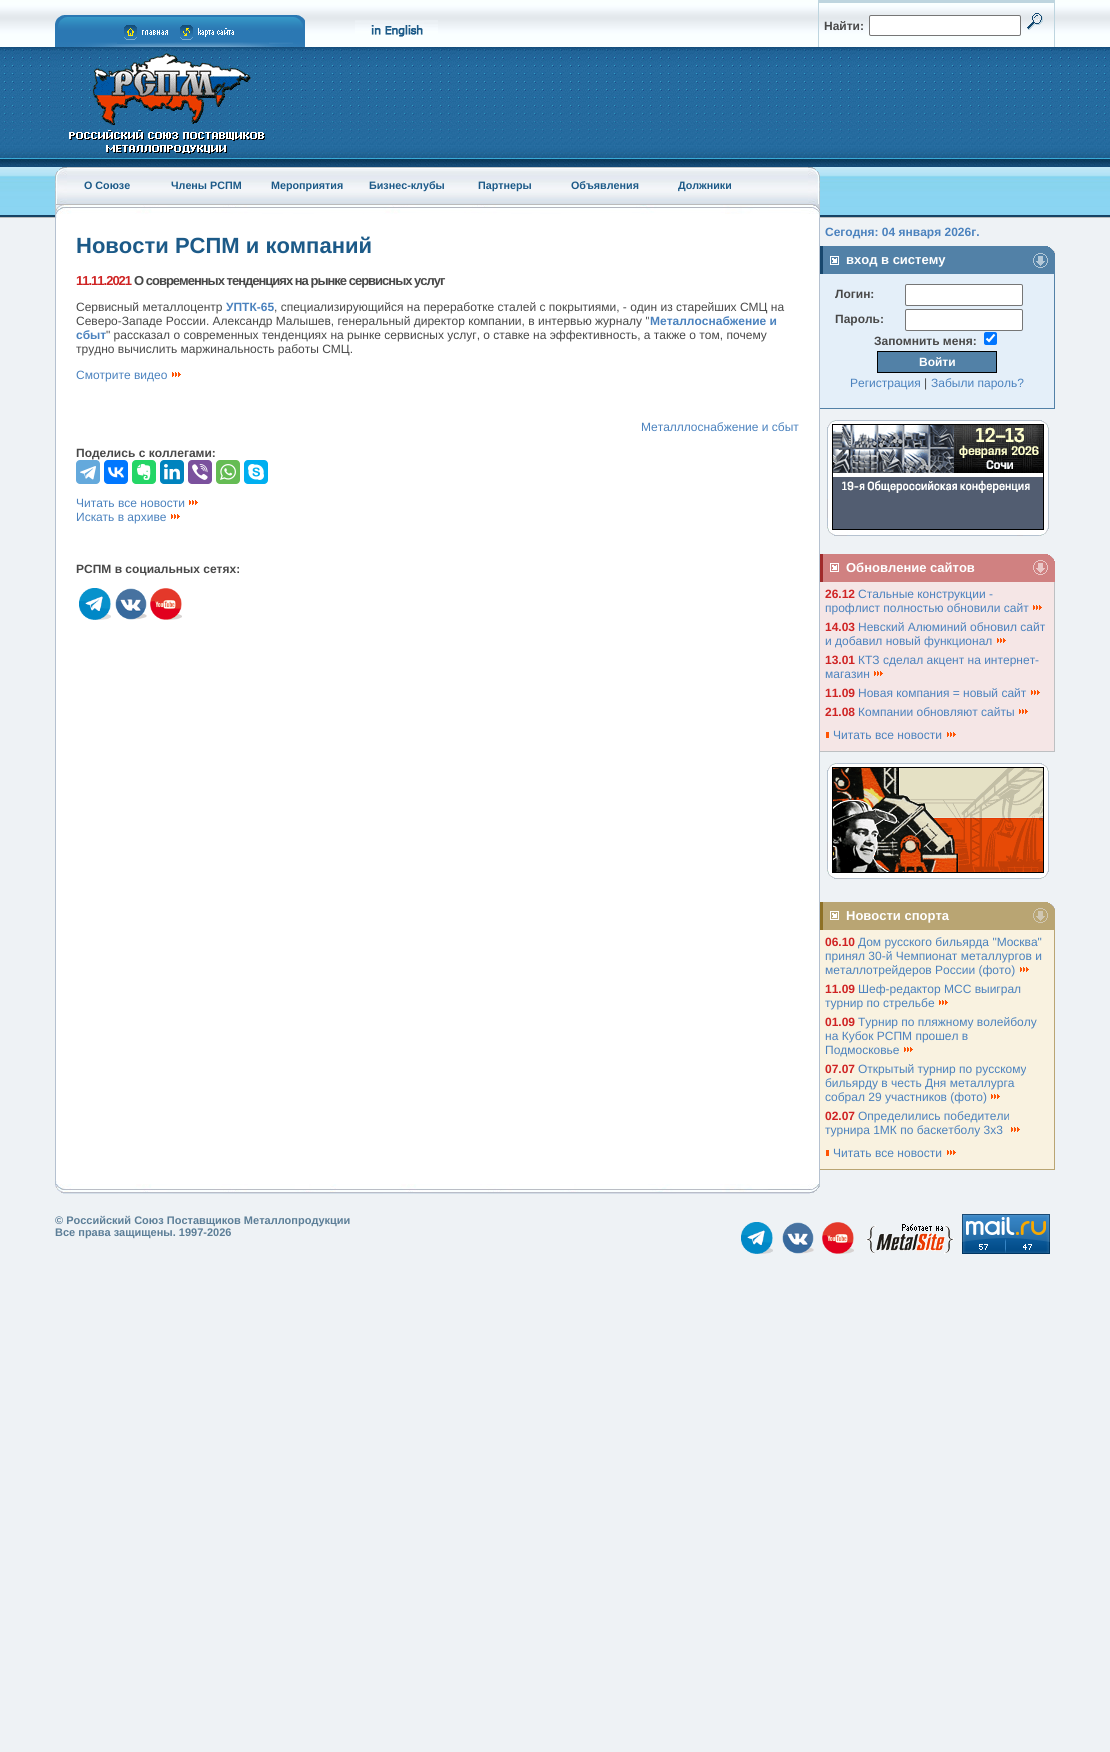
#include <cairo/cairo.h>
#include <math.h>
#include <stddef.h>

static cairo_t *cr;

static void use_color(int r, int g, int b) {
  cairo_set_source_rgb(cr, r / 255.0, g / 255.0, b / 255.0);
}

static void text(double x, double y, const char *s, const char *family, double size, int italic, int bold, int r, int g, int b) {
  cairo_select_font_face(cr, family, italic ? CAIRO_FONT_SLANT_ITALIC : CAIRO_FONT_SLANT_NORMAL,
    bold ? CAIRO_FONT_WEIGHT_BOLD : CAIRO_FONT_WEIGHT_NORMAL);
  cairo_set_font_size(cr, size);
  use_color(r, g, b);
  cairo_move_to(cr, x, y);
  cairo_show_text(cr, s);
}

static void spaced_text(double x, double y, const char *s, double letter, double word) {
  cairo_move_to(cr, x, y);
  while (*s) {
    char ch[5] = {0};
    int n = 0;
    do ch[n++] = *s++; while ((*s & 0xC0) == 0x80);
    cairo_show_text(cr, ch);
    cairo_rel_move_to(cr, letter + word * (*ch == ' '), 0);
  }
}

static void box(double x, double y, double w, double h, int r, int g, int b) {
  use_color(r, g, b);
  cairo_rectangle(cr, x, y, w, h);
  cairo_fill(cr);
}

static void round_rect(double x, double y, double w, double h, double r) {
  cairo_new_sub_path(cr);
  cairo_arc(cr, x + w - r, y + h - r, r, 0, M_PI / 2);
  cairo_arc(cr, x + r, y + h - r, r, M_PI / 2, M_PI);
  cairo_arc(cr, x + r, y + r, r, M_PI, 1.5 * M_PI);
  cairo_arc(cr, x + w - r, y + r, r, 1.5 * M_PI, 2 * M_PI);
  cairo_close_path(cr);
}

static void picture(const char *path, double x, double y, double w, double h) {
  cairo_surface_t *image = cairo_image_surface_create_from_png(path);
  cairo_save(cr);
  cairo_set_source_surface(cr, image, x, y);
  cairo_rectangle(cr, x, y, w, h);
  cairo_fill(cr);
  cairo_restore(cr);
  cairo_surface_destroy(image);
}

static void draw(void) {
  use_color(238, 242, 245);
  cairo_paint(cr);
  picture("img_01.png", 0, 0, 1110, 218);
  picture("img_02.png", 55, 15, 250, 32);
  picture("img_03.png", 355, 20, 83, 17);
  box(818, 0, 237, 3, 190, 213, 223);
  box(1054, 0, 1, 47, 190, 213, 223);
  box(818, 0, 1, 47, 190, 213, 223);
  use_color(255, 255, 255);
  round_rect(869.5, 15.5, 151, 20, 1.5);
  cairo_fill_preserve(cr);
  use_color(118, 118, 118);
  cairo_set_line_width(cr, 1);
  cairo_stroke(cr);
  picture("img_04.png", 1027, 13, 16, 17);
  picture("img_05.png", 55, 50, 250, 106);
  picture("img_06.png", 55, 167, 488, 37);
  picture("img_07.png", 543, 167, 277, 37);
  picture("img_08.png", 55, 204, 309, 14);
  picture("img_09.png", 364, 204, 456, 14);
  box(56, 218, 763, 962, 255, 255, 255);
  box(819, 218, 1, 962, 181, 193, 208);
  box(55, 218, 1, 962, 181, 193, 208);
  picture("img_10.png", 172, 372, 9, 5);
  use_color(100, 169, 220);
  round_rect(76, 460, 24, 24, 4);
  cairo_fill(cr);
  picture("img_11.png", 80, 466, 16, 14);
  use_color(0, 119, 255);
  round_rect(104, 460, 24, 24, 4);
  cairo_fill(cr);
  picture("img_12.png", 108, 467, 16, 11);
  use_color(36, 214, 102);
  round_rect(132, 460, 24, 24, 4);
  cairo_fill(cr);
  picture("img_13.png", 137, 464, 14, 16);
  use_color(0, 131, 190);
  round_rect(160, 460, 24, 24, 4);
  cairo_fill(cr);
  picture("img_14.png", 164, 464, 16, 16);
  use_color(123, 81, 157);
  round_rect(188, 460, 24, 24, 4);
  cairo_fill(cr);
  picture("img_15.png", 192, 464, 16, 16);
  use_color(101, 188, 84);
  round_rect(216, 460, 24, 24, 4);
  cairo_fill(cr);
  picture("img_16.png", 220, 464, 16, 16);
  use_color(0, 175, 240);
  round_rect(244, 460, 24, 24, 4);
  cairo_fill(cr);
  picture("img_17.png", 248, 464, 16, 16);
  picture("img_10.png", 189, 500, 9, 5);
  picture("img_10.png", 171, 514, 9, 5);
  picture("img_18.png", 79, 588, 32, 32);
  picture("img_19.png", 115, 588, 32, 32);
  picture("img_20.png", 150, 588, 32, 32);
  picture("img_21.png", 820, 246, 235, 28);
  box(820, 274, 234, 134, 228, 239, 249);
  box(1054, 274, 1, 135, 82, 129, 167);
  box(820, 408, 235, 1, 82, 129, 167);
  use_color(255, 255, 255);
  round_rect(905.5, 284.5, 117, 21, 1.5);
  cairo_fill_preserve(cr);
  use_color(118, 118, 118);
  cairo_stroke(cr);
  use_color(255, 255, 255);
  round_rect(905.5, 309.5, 117, 21, 1.5);
  cairo_fill_preserve(cr);
  use_color(118, 118, 118);
  cairo_stroke(cr);
  use_color(0, 117, 255);
  round_rect(984, 332, 13, 13, 2);
  cairo_fill(cr);
  cairo_new_path(cr);
  cairo_move_to(cr, 986.5, 338.5);
  cairo_line_to(cr, 989, 341);
  cairo_line_to(cr, 994.5, 334.5);
  use_color(255, 255, 255);
  cairo_set_line_width(cr, 2.1);
  cairo_stroke(cr);
  use_color(82, 129, 167);
  cairo_rectangle(cr, 877.5, 351.5, 119, 21);
  cairo_fill_preserve(cr);
  use_color(0, 0, 0);
  cairo_set_line_width(cr, 1);
  cairo_stroke(cr);
  picture("img_22.png", 827, 420, 222, 116);
  picture("img_23.png", 832, 424, 212, 106);
  picture("img_24.png", 820, 554, 235, 28);
  box(820, 582, 234, 169, 245, 230, 230);
  box(1054, 582, 1, 170, 189, 192, 194);
  box(820, 751, 235, 1, 189, 192, 194);
  picture("img_25.png", 1033, 605, 9, 5);
  picture("img_25.png", 997, 638, 9, 5);
  picture("img_25.png", 874, 671, 9, 5);
  picture("img_25.png", 1031, 690, 9, 5);
  picture("img_25.png", 1019, 709, 9, 5);
  box(826, 732, 3, 6, 255, 84, 4);
  picture("img_25.png", 947, 732, 9, 5);
  picture("img_22.png", 827, 763, 222, 116);
  picture("img_26.png", 832, 767, 212, 106);
  picture("img_27.png", 820, 902, 235, 28);
  box(820, 930, 234, 239, 249, 242, 224);
  box(1054, 930, 1, 240, 185, 165, 115);
  box(820, 1169, 235, 1, 185, 165, 115);
  picture("img_28.png", 1020, 967, 9, 5);
  picture("img_28.png", 939, 1000, 9, 5);
  picture("img_28.png", 904, 1047, 9, 5);
  picture("img_28.png", 991, 1094, 9, 5);
  picture("img_28.png", 1011, 1127, 9, 5);
  box(826, 1150, 3, 6, 255, 84, 4);
  picture("img_28.png", 947, 1150, 9, 5);
  picture("img_29.png", 55, 1180, 275, 14);
  picture("img_30.png", 330, 1180, 490, 14);
  picture("img_31.png", 741, 1222, 32, 32);
  picture("img_32.png", 782, 1222, 32, 32);
  picture("img_33.png", 822, 1222, 32, 32);
  picture("img_34.png", 866, 1224, 88, 30);
  picture("img_35.png", 962, 1214, 88, 40);
  text(824, 30, "Найти:", "Liberation Sans", 12, 0, 1, 72, 72, 72);
  text(84, 189, "О Союзе", "Liberation Sans", 10.75, 0, 1, 28, 90, 136);
  text(171, 189, "Члены РСПМ", "Liberation Sans", 10.75, 0, 1, 28, 90, 136);
  text(271, 189, "Мероприятия", "Liberation Sans", 10.75, 0, 1, 28, 90, 136);
  text(369, 189, "Бизнес-клубы", "Liberation Sans", 10.75, 0, 1, 28, 90, 136);
  text(478, 189, "Партнеры", "Liberation Sans", 10.75, 0, 1, 28, 90, 136);
  text(571, 189, "Объявления", "Liberation Sans", 10.75, 0, 1, 28, 90, 136);
  text(678, 189, "Должники", "Liberation Sans", 10.75, 0, 1, 28, 90, 136);
  text(76, 253, "Новости РСПМ и компаний", "Liberation Sans", 22, 0, 1, 28, 90, 136);
  cairo_set_font_size(cr, 13);
  use_color(207, 35, 35);
  spaced_text(76, 285, "11.11.2021", -1, 0);
  use_color(72, 72, 72);
  spaced_text(134, 285, "О современных тенденциях на рынке сервисных услуг", -1, 0);
  text(76, 311, "Сервисный металлоцентр", "Liberation Sans", 12, 0, 0, 72, 72, 72);
  text(226, 311, "УПТК-65", "Liberation Sans", 12, 0, 1, 75, 130, 190);
  text(274, 311, ", специализирующийся на переработке сталей с покрытиями, - один из старейших СМЦ на", "Liberation Sans", 12, 0, 0, 72, 72, 72);
  text(76, 325, "Северо-Западе России. Александр Малышев, генеральный директор компании, в интервью журналу \"", "Liberation Sans", 12, 0, 0, 72, 72, 72);
  text(650, 325, "Металлоснабжение и", "Liberation Sans", 12, 0, 1, 75, 130, 190);
  text(76, 339, "сбыт", "Liberation Sans", 12, 0, 1, 75, 130, 190);
  text(106, 339, "\" рассказал о современных тенденциях на рынке сервисных услуг, о ставке на эффективность, а также о том, почему", "Liberation Sans", 12, 0, 0, 72, 72, 72);
  text(76, 353, "трудно вычислить маржинальность работы СМЦ.", "Liberation Sans", 12, 0, 0, 72, 72, 72);
  text(76, 379, "Смотрите видео", "Liberation Sans", 12, 0, 0, 75, 130, 190);
  text(641, 431, "Металллоснабжение и сбыт", "Liberation Sans", 12, 0, 0, 75, 130, 190);
  text(76, 457, "Поделись с коллегами:", "Liberation Sans", 12, 0, 1, 72, 72, 72);
  text(76, 507, "Читать все новости", "Liberation Sans", 12, 0, 0, 75, 130, 190);
  text(76, 521, "Искать в архиве", "Liberation Sans", 12, 0, 0, 75, 130, 190);
  text(76, 573, "РСПМ в социальных сетях:", "Liberation Sans", 12, 0, 1, 72, 72, 72);
  text(825, 236, "Сегодня: 04 января 2026г.", "Liberation Sans", 12, 0, 1, 75, 130, 190);
  text(846, 264, "вход в систему", "Liberation Sans", 13, 0, 1, 255, 255, 255);
  text(835, 298, "Логин:", "Liberation Sans", 12, 0, 1, 72, 72, 72);
  text(835, 323, "Пароль:", "Liberation Sans", 12, 0, 1, 72, 72, 72);
  text(874, 345, "Запомнить меня:", "Liberation Sans", 12, 0, 1, 72, 72, 72);
  text(919, 366, "Войти", "Liberation Sans", 12, 0, 1, 255, 255, 255);
  text(850, 387, "Регистрация", "Liberation Sans", 12, 0, 0, 75, 130, 190);
  text(924, 387, "|", "Liberation Sans", 12, 0, 0, 72, 72, 72);
  text(931, 387, "Забыли пароль?", "Liberation Sans", 12, 0, 0, 75, 130, 190);
  text(846, 572, "Обновление сайтов", "Liberation Sans", 13, 0, 1, 255, 255, 255);
  text(825, 598, "26.12", "Liberation Sans", 12, 0, 1, 207, 35, 35);
  text(858, 598, "Стальные конструкции -", "Liberation Sans", 12, 0, 0, 75, 130, 190);
  text(825, 612, "профлист полностью обновили сайт", "Liberation Sans", 12, 0, 0, 75, 130, 190);
  text(825, 631, "14.03", "Liberation Sans", 12, 0, 1, 207, 35, 35);
  text(858, 631, "Невский Алюминий обновил сайт", "Liberation Sans", 12, 0, 0, 75, 130, 190);
  text(825, 645, "и добавил новый функционал", "Liberation Sans", 12, 0, 0, 75, 130, 190);
  text(825, 664, "13.01", "Liberation Sans", 12, 0, 1, 207, 35, 35);
  text(858, 664, "КТЗ сделал акцент на интернет-", "Liberation Sans", 12, 0, 0, 75, 130, 190);
  text(825, 678, "магазин", "Liberation Sans", 12, 0, 0, 75, 130, 190);
  text(825, 697, "11.09", "Liberation Sans", 12, 0, 1, 207, 35, 35);
  text(858, 697, "Новая компания = новый сайт", "Liberation Sans", 12, 0, 0, 75, 130, 190);
  text(825, 716, "21.08", "Liberation Sans", 12, 0, 1, 207, 35, 35);
  text(858, 716, "Компании обновляют сайты", "Liberation Sans", 12, 0, 0, 75, 130, 190);
  text(833, 739, "Читать все новости", "Liberation Sans", 12, 0, 0, 75, 130, 190);
  text(846, 920, "Новости спорта", "Liberation Sans", 13, 0, 1, 255, 255, 255);
  text(825, 946, "06.10", "Liberation Sans", 12, 0, 1, 207, 35, 35);
  text(858, 946, "Дом русского бильярда \"Москва\"", "Liberation Sans", 12, 0, 0, 75, 130, 190);
  text(825, 960, "принял 30-й Чемпионат металлургов и", "Liberation Sans", 12, 0, 0, 75, 130, 190);
  text(825, 974, "металлотрейдеров России (фото)", "Liberation Sans", 12, 0, 0, 75, 130, 190);
  text(825, 993, "11.09", "Liberation Sans", 12, 0, 1, 207, 35, 35);
  text(858, 993, "Шеф-редактор МСС выиграл", "Liberation Sans", 12, 0, 0, 75, 130, 190);
  text(825, 1007, "турнир по стрельбе", "Liberation Sans", 12, 0, 0, 75, 130, 190);
  text(825, 1026, "01.09", "Liberation Sans", 12, 0, 1, 207, 35, 35);
  text(858, 1026, "Турнир по пляжному волейболу", "Liberation Sans", 12, 0, 0, 75, 130, 190);
  text(825, 1040, "на Кубок РСПМ прошел в", "Liberation Sans", 12, 0, 0, 75, 130, 190);
  text(825, 1054, "Подмосковье", "Liberation Sans", 12, 0, 0, 75, 130, 190);
  text(825, 1073, "07.07", "Liberation Sans", 12, 0, 1, 207, 35, 35);
  text(858, 1073, "Открытый турнир по русскому", "Liberation Sans", 12, 0, 0, 75, 130, 190);
  text(825, 1087, "бильярду в честь Дня металлурга", "Liberation Sans", 12, 0, 0, 75, 130, 190);
  text(825, 1101, "собрал 29 участников (фото)", "Liberation Sans", 12, 0, 0, 75, 130, 190);
  text(825, 1120, "02.07", "Liberation Sans", 12, 0, 1, 207, 35, 35);
  text(858, 1120, "Определились победители", "Liberation Sans", 12, 0, 0, 75, 130, 190);
  text(825, 1134, "турнира 1МК по баскетболу 3х3", "Liberation Sans", 12, 0, 0, 75, 130, 190);
  text(833, 1157, "Читать все новости", "Liberation Sans", 12, 0, 0, 75, 130, 190);
  text(55, 1224, "© Российский Союз Поставщиков Металлопродукции", "Liberation Sans", 11, 0, 1, 92, 126, 151);
  text(55, 1236, "Все права защищены. 1997-2026", "Liberation Sans", 11, 0, 1, 92, 126, 151);
}

int main(void) {
  cairo_surface_t *surface = cairo_image_surface_create(CAIRO_FORMAT_RGB24, 1110, 1752);
  cr = cairo_create(surface);
  cairo_font_options_t *options = cairo_font_options_create();
  cairo_font_options_set_hint_metrics(options, CAIRO_HINT_METRICS_OFF);
  cairo_font_options_set_hint_style(options, CAIRO_HINT_STYLE_NONE);
  cairo_set_font_options(cr, options);
  cairo_set_miter_limit(cr, 4);
  draw();
  cairo_surface_write_to_png(surface, "out.png");
  cairo_font_options_destroy(options);
  cairo_destroy(cr);
  cairo_surface_destroy(surface);
  return 0;
}
